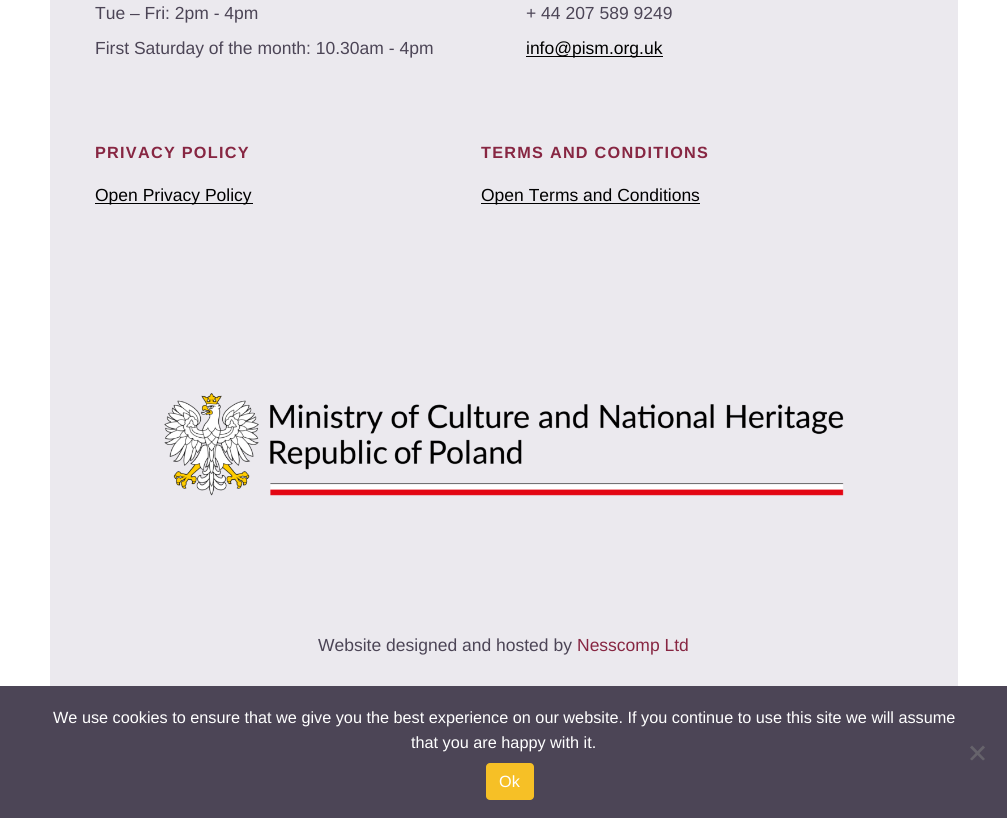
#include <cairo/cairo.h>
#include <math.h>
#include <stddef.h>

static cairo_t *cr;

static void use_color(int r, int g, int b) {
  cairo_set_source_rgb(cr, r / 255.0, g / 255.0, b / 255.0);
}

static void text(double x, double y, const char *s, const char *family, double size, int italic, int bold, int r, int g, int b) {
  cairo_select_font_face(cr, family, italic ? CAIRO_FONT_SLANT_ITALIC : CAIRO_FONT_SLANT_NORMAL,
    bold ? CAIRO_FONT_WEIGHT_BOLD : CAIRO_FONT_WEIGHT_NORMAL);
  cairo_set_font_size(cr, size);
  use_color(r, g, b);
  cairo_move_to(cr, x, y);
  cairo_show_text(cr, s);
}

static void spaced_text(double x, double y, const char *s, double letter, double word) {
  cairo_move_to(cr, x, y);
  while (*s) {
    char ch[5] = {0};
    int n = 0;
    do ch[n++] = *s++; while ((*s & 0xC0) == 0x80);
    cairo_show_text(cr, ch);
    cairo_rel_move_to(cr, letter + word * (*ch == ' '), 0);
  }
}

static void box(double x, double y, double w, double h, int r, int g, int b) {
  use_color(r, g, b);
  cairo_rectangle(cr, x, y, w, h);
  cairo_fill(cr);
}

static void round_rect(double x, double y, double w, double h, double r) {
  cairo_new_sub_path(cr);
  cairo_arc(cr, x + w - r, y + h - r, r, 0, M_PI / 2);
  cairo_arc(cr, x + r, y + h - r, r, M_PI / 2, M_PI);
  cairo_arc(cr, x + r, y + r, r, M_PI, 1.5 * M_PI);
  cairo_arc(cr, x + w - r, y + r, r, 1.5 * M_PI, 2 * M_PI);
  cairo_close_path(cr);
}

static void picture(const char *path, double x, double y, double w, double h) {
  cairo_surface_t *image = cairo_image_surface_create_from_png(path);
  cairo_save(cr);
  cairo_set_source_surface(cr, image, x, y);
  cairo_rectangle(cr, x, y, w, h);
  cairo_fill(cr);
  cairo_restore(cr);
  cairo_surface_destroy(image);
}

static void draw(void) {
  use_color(255, 255, 255);
  cairo_paint(cr);
  box(50, 0, 908, 686, 235, 233, 238);
  box(526, 56, 137, 1, 0, 0, 0);
  box(95, 203, 158, 1, 0, 0, 0);
  box(481, 203, 219, 1, 0, 0, 0);
  picture("img_01.png", 164, 393, 680, 103);
  box(0, 686, 1007, 132, 76, 69, 86);
  use_color(102, 99, 107);
  cairo_new_path(cr);
  cairo_move_to(cr, 983, 745.5);
  cairo_line_to(cr, 985, 747.5);
  cairo_line_to(cr, 972, 760.5);
  cairo_line_to(cr, 970, 759);
  cairo_close_path(cr);
  cairo_fill(cr);
  cairo_new_path(cr);
  cairo_move_to(cr, 970, 747.5);
  cairo_line_to(cr, 972, 745.5);
  cairo_line_to(cr, 985, 759);
  cairo_line_to(cr, 983, 760.5);
  cairo_close_path(cr);
  cairo_fill(cr);
  use_color(246, 192, 38);
  round_rect(486, 763, 48, 37, 4);
  cairo_fill(cr);
  text(95, 19, "Tue – Fri: 2pm - 4pm", "Liberation Sans", 17.5, 0, 0, 76, 69, 86);
  text(95, 54, "First Saturday of the month: 10.30am - 4pm", "Liberation Sans", 17.5, 0, 0, 76, 69, 86);
  text(526, 19, "+ 44 207 589 9249", "Liberation Sans", 17.5, 0, 0, 76, 69, 86);
  text(526, 54, "info@pism.org.uk", "Liberation Sans", 17.5, 0, 0, 0, 0, 0);
  cairo_select_font_face(cr, "Liberation Sans", CAIRO_FONT_SLANT_NORMAL, CAIRO_FONT_WEIGHT_BOLD);
  cairo_set_font_size(cr, 16.25);
  use_color(135, 38, 66);
  spaced_text(95, 158, "PRIVACY POLICY", 1.25, 0);
  text(95, 201, "Open Privacy Policy", "Liberation Sans", 17.5, 0, 0, 0, 0, 0);
  cairo_select_font_face(cr, "Liberation Sans", CAIRO_FONT_SLANT_NORMAL, CAIRO_FONT_WEIGHT_BOLD);
  cairo_set_font_size(cr, 16.25);
  use_color(135, 38, 66);
  spaced_text(481, 158, "TERMS AND CONDITIONS", 1.25, 0);
  text(481, 201, "Open Terms and Conditions", "Liberation Sans", 17.5, 0, 0, 0, 0, 0);
  text(318, 651, "Website designed and hosted by", "Liberation Sans", 17.5, 0, 0, 76, 69, 86);
  text(577, 651, "Nesscomp Ltd", "Liberation Sans", 17.5, 0, 0, 135, 38, 66);
  text(53, 723, "We use cookies to ensure that we give you the best experience on our website. If you continue to use this site we will assume", "Liberation Sans", 16.25, 0, 0, 255, 255, 255);
  text(411, 748, "that you are happy with it.", "Liberation Sans", 16.25, 0, 0, 255, 255, 255);
  text(499, 787, "Ok", "Liberation Sans", 16.25, 0, 0, 255, 255, 255);
}

int main(void) {
  cairo_surface_t *surface = cairo_image_surface_create(CAIRO_FORMAT_RGB24, 1007, 818);
  cr = cairo_create(surface);
  cairo_font_options_t *options = cairo_font_options_create();
  cairo_font_options_set_hint_metrics(options, CAIRO_HINT_METRICS_OFF);
  cairo_font_options_set_hint_style(options, CAIRO_HINT_STYLE_NONE);
  cairo_set_font_options(cr, options);
  cairo_set_miter_limit(cr, 4);
  draw();
  cairo_surface_write_to_png(surface, "out.png");
  cairo_font_options_destroy(options);
  cairo_destroy(cr);
  cairo_surface_destroy(surface);
  return 0;
}
